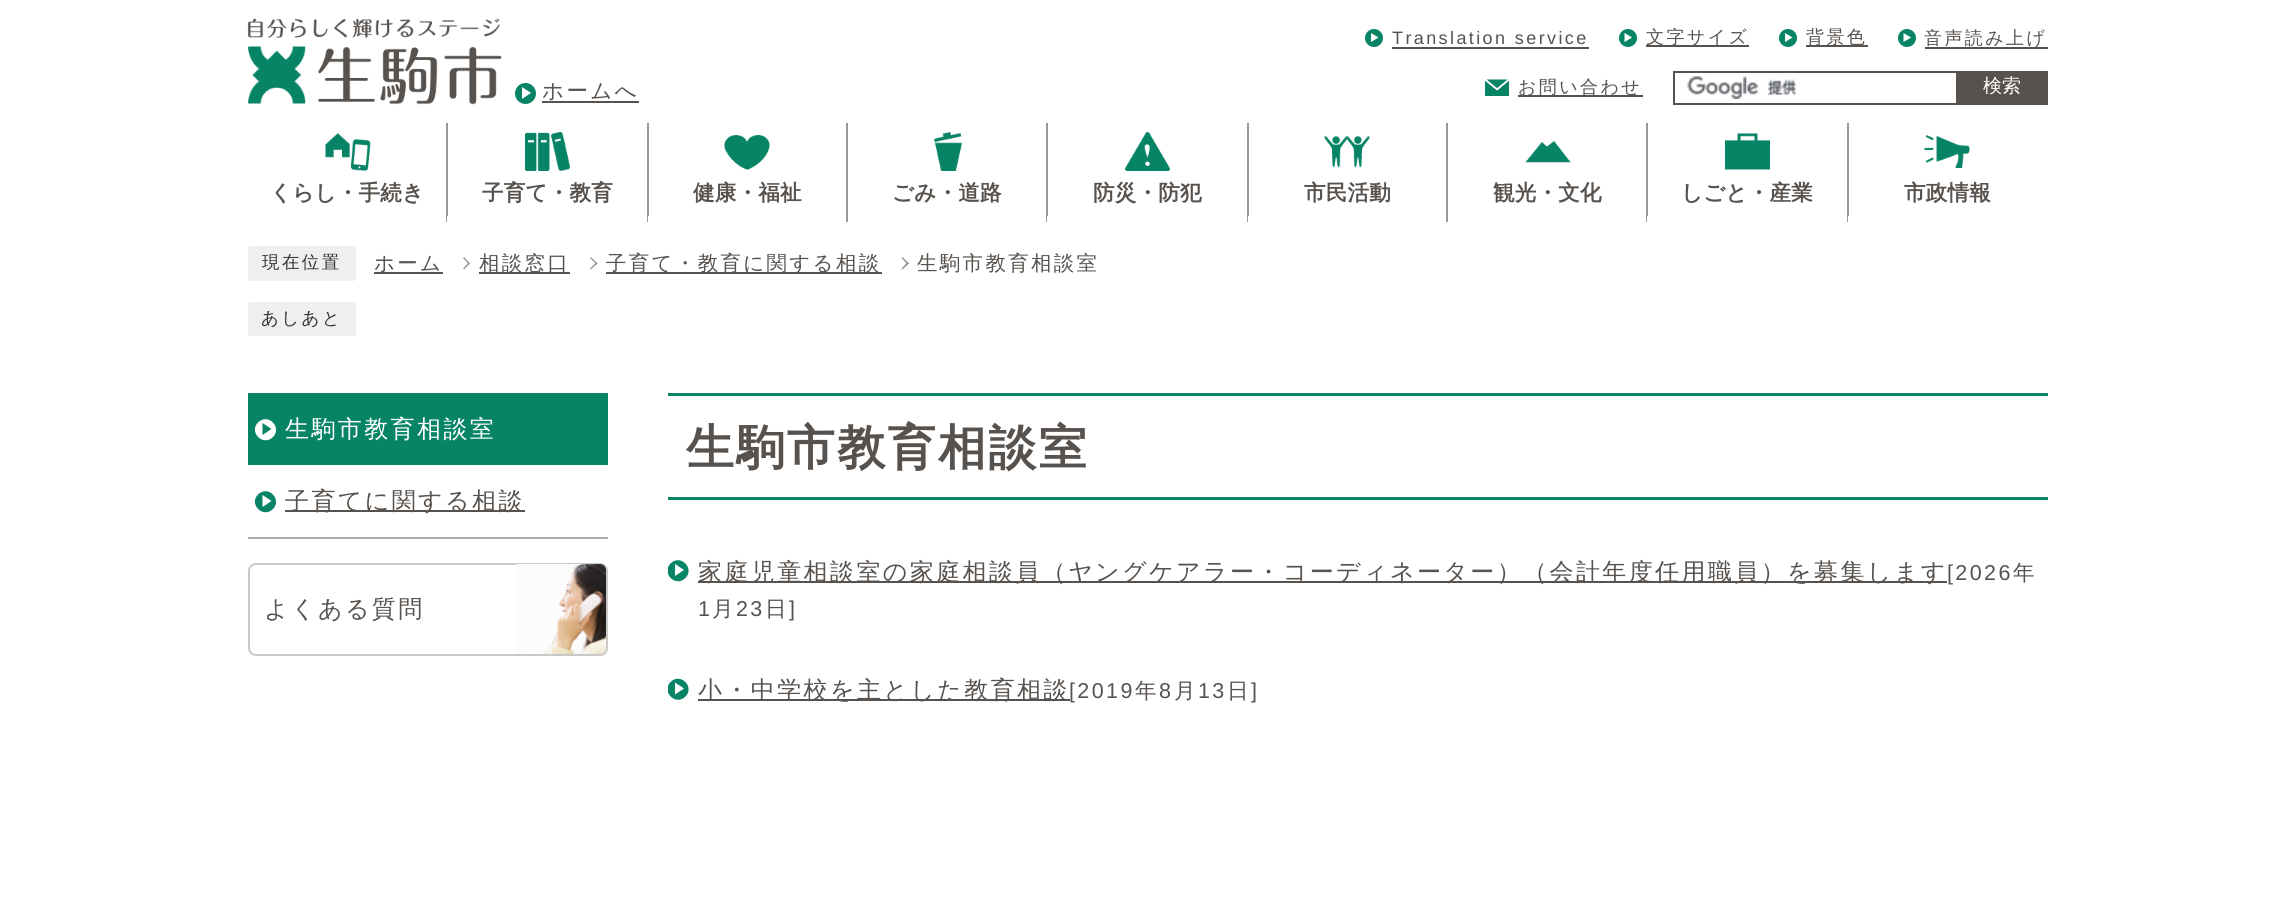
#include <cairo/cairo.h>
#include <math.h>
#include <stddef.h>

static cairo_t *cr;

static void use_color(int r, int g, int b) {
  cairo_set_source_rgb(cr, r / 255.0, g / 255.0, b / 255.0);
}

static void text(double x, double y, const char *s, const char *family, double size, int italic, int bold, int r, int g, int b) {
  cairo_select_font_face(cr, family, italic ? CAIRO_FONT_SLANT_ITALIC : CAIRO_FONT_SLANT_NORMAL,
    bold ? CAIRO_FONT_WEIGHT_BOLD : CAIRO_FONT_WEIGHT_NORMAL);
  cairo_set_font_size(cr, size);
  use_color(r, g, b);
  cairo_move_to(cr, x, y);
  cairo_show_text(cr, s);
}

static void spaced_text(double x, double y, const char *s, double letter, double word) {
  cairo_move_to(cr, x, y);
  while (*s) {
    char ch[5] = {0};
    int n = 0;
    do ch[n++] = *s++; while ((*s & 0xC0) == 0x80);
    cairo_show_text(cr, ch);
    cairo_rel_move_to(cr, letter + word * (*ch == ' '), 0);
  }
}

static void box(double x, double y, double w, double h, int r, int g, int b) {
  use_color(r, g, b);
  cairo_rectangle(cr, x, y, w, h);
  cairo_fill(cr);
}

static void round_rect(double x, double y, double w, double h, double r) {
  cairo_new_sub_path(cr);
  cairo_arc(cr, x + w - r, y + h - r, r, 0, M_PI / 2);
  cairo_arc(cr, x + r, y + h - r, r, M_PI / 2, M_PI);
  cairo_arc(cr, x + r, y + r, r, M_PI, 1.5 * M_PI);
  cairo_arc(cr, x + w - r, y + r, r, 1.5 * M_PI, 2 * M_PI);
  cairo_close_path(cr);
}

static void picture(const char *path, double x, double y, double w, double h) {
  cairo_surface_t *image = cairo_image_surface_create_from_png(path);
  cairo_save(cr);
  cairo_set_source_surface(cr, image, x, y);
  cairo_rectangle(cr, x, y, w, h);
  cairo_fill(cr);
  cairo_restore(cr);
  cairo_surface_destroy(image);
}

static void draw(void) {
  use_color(255, 255, 255);
  cairo_paint(cr);
  picture("img_01.png", 247, 18, 255, 87);
  use_color(7, 132, 102);
  cairo_arc(cr, 525.5, 93.5, 10.5, 0, 2 * M_PI);
  cairo_fill(cr);
  box(542, 101, 97, 2, 87, 82, 78);
  use_color(255, 255, 255);
  cairo_new_path(cr);
  cairo_move_to(cr, 522, 99);
  cairo_line_to(cr, 522, 87);
  cairo_line_to(cr, 531, 93);
  cairo_close_path(cr);
  cairo_fill(cr);
  use_color(7, 132, 102);
  cairo_arc(cr, 1374, 38, 9, 0, 2 * M_PI);
  cairo_fill(cr);
  box(1392, 47, 197, 2, 87, 82, 78);
  use_color(255, 255, 255);
  cairo_new_path(cr);
  cairo_move_to(cr, 1371, 42);
  cairo_line_to(cr, 1371, 33);
  cairo_line_to(cr, 1378.5, 37.5);
  cairo_close_path(cr);
  cairo_fill(cr);
  use_color(7, 132, 102);
  cairo_arc(cr, 1628, 38, 9, 0, 2 * M_PI);
  cairo_fill(cr);
  box(1646, 45, 103, 2, 87, 82, 78);
  use_color(255, 255, 255);
  cairo_new_path(cr);
  cairo_move_to(cr, 1624.5, 42);
  cairo_line_to(cr, 1624.5, 33);
  cairo_line_to(cr, 1632, 37.5);
  cairo_close_path(cr);
  cairo_fill(cr);
  use_color(7, 132, 102);
  cairo_arc(cr, 1788, 38, 9, 0, 2 * M_PI);
  cairo_fill(cr);
  box(1806, 45, 62, 2, 87, 82, 78);
  use_color(255, 255, 255);
  cairo_new_path(cr);
  cairo_move_to(cr, 1785, 42);
  cairo_line_to(cr, 1785, 33);
  cairo_line_to(cr, 1792.5, 37.5);
  cairo_close_path(cr);
  cairo_fill(cr);
  use_color(7, 132, 102);
  cairo_arc(cr, 1907, 38, 9, 0, 2 * M_PI);
  cairo_fill(cr);
  box(1925, 47, 123, 2, 87, 82, 78);
  use_color(255, 255, 255);
  cairo_new_path(cr);
  cairo_move_to(cr, 1903.5, 42);
  cairo_line_to(cr, 1903.5, 33);
  cairo_line_to(cr, 1911, 37.5);
  cairo_close_path(cr);
  cairo_fill(cr);
  picture("img_02.png", 1485, 79, 24, 17);
  box(1518, 95, 125, 2, 87, 82, 78);
  picture("img_03.png", 1687, 76, 110, 23);
  cairo_rectangle(cr, 1674, 72, 283, 32);
  cairo_stroke(cr);
  box(1958, 71, 90, 34, 87, 82, 78);
  picture("img_04.png", 325, 133, 46, 38);
  box(446, 123, 2, 99, 153, 153, 153);
  box(447, 216, 1, 6, 255, 255, 255);
  picture("img_05.png", 525, 132, 45, 39);
  box(647, 123, 2, 99, 153, 153, 153);
  box(648, 216, 1, 6, 255, 255, 255);
  picture("img_06.png", 724, 135, 46, 35);
  box(846, 123, 2, 99, 153, 153, 153);
  picture("img_07.png", 933, 132, 30, 39);
  box(1046, 123, 2, 99, 153, 153, 153);
  box(1047, 216, 1, 6, 255, 255, 255);
  picture("img_08.png", 1125, 132, 45, 39);
  box(1247, 123, 2, 99, 153, 153, 153);
  box(1248, 216, 1, 6, 255, 255, 255);
  picture("img_09.png", 1324, 135, 46, 33);
  box(1446, 123, 2, 99, 153, 153, 153);
  picture("img_10.png", 1525, 141, 46, 22);
  box(1646, 123, 2, 99, 153, 153, 153);
  box(1647, 216, 1, 6, 255, 255, 255);
  picture("img_11.png", 1725, 133, 45, 37);
  box(1847, 123, 2, 99, 153, 153, 153);
  box(1848, 216, 1, 6, 255, 255, 255);
  picture("img_12.png", 1924, 135, 46, 33);
  use_color(239, 239, 239);
  round_rect(248, 246, 108, 35, 3);
  cairo_fill(cr);
  box(374, 272, 69, 2, 87, 82, 78);
  use_color(153, 153, 153);
  cairo_new_path(cr);
  cairo_move_to(cr, 463, 258);
  cairo_line_to(cr, 464, 257);
  cairo_line_to(cr, 470, 263.5);
  cairo_line_to(cr, 469, 264.5);
  cairo_close_path(cr);
  cairo_fill(cr);
  cairo_new_path(cr);
  cairo_move_to(cr, 463, 268.5);
  cairo_line_to(cr, 469, 262);
  cairo_line_to(cr, 470, 263.5);
  cairo_line_to(cr, 464, 269.5);
  cairo_close_path(cr);
  cairo_fill(cr);
  box(479, 272, 91, 2, 87, 82, 78);
  use_color(153, 153, 153);
  cairo_new_path(cr);
  cairo_move_to(cr, 590, 258);
  cairo_line_to(cr, 591, 257);
  cairo_line_to(cr, 597.5, 263.5);
  cairo_line_to(cr, 596.5, 264.5);
  cairo_close_path(cr);
  cairo_fill(cr);
  cairo_new_path(cr);
  cairo_move_to(cr, 590, 268.5);
  cairo_line_to(cr, 596.5, 262);
  cairo_line_to(cr, 597.5, 263.5);
  cairo_line_to(cr, 591, 269.5);
  cairo_close_path(cr);
  cairo_fill(cr);
  box(606, 272, 276, 2, 87, 82, 78);
  use_color(153, 153, 153);
  cairo_new_path(cr);
  cairo_move_to(cr, 901.5, 258);
  cairo_line_to(cr, 902.5, 257);
  cairo_line_to(cr, 909, 263.5);
  cairo_line_to(cr, 907.5, 264.5);
  cairo_close_path(cr);
  cairo_fill(cr);
  cairo_new_path(cr);
  cairo_move_to(cr, 901.5, 268.5);
  cairo_line_to(cr, 907.5, 262);
  cairo_line_to(cr, 909, 263.5);
  cairo_line_to(cr, 902.5, 269.5);
  cairo_close_path(cr);
  cairo_fill(cr);
  use_color(239, 239, 239);
  round_rect(248, 302, 108, 34, 3);
  cairo_fill(cr);
  box(248, 393, 360, 72, 7, 132, 102);
  use_color(255, 255, 255);
  cairo_new_path(cr);
  cairo_move_to(cr, 258, 422.5);
  cairo_curve_to(cr, 268, 412.5, 282.5, 427.5, 273, 437);
  cairo_curve_to(cr, 263, 447, 248.5, 432, 258, 422.5);
  cairo_close_path(cr);
  cairo_fill(cr);
  use_color(7, 132, 102);
  cairo_new_path(cr);
  cairo_move_to(cr, 262.5, 435);
  cairo_line_to(cr, 262.5, 423);
  cairo_line_to(cr, 271.5, 429);
  cairo_close_path(cr);
  cairo_fill(cr);
  box(248, 537, 360, 2, 170, 170, 170);
  use_color(7, 132, 102);
  cairo_new_path(cr);
  cairo_move_to(cr, 258, 494.5);
  cairo_curve_to(cr, 268, 484.5, 282.5, 499.5, 273, 509);
  cairo_curve_to(cr, 263, 519, 248.5, 504, 258, 494.5);
  cairo_close_path(cr);
  cairo_fill(cr);
  box(285, 510, 240, 2, 87, 82, 78);
  use_color(255, 255, 255);
  cairo_new_path(cr);
  cairo_move_to(cr, 262.5, 507);
  cairo_line_to(cr, 262.5, 495);
  cairo_line_to(cr, 271.5, 501);
  cairo_close_path(cr);
  cairo_fill(cr);
  round_rect(249, 564, 358, 91, 7);
  use_color(200, 201, 202);
  cairo_stroke(cr);
  picture("img_13.png", 516, 564, 90, 90);
  box(668, 393, 1380, 3, 7, 132, 102);
  box(668, 497, 1380, 3, 7, 132, 102);
  cairo_save(cr);
  cairo_rectangle(cr, 668, 554, 1380, 94);
  cairo_clip(cr);
  cairo_new_path(cr);
  cairo_move_to(cr, 670.5, 563.5);
  cairo_curve_to(cr, 680.5, 553.5, 695, 568.5, 685.5, 578);
  cairo_curve_to(cr, 675.5, 588, 661, 573, 670.5, 563.5);
  cairo_close_path(cr);
  cairo_fill(cr);
  cairo_restore(cr);
  box(698, 581, 1249, 2, 87, 82, 78);
  use_color(255, 255, 255);
  cairo_new_path(cr);
  cairo_move_to(cr, 675, 576);
  cairo_line_to(cr, 675, 564);
  cairo_line_to(cr, 684, 570);
  cairo_close_path(cr);
  cairo_fill(cr);
  cairo_save(cr);
  cairo_rectangle(cr, 668, 672, 1380, 59);
  cairo_clip(cr);
  use_color(7, 132, 102);
  cairo_new_path(cr);
  cairo_move_to(cr, 670.5, 682);
  cairo_curve_to(cr, 680.5, 672, 695, 687, 685.5, 696.5);
  cairo_curve_to(cr, 675.5, 706.5, 661, 691.5, 670.5, 682);
  cairo_close_path(cr);
  cairo_fill(cr);
  cairo_restore(cr);
  box(698, 699, 372, 2, 87, 82, 78);
  use_color(255, 255, 255);
  cairo_new_path(cr);
  cairo_move_to(cr, 675, 694.5);
  cairo_line_to(cr, 675, 682.5);
  cairo_line_to(cr, 684, 688.5);
  cairo_close_path(cr);
  cairo_fill(cr);
  cairo_select_font_face(cr, "WenQuanYi Zen Hei Medium", CAIRO_FONT_SLANT_NORMAL, CAIRO_FONT_WEIGHT_NORMAL);
  cairo_set_font_size(cr, 21.5);
  use_color(87, 82, 78);
  spaced_text(542, 98, "ホームへ", 2.4, 0);
  cairo_select_font_face(cr, "Liberation Sans", CAIRO_FONT_SLANT_NORMAL, CAIRO_FONT_WEIGHT_NORMAL);
  cairo_set_font_size(cr, 18);
  spaced_text(1392, 44, "Translation service", 2.4, 0);
  cairo_select_font_face(cr, "WenQuanYi Zen Hei Medium", CAIRO_FONT_SLANT_NORMAL, CAIRO_FONT_WEIGHT_NORMAL);
  spaced_text(1646, 43, "文字サイズ", 2.4, 0);
  spaced_text(1806, 43, "背景色", 2.4, 0);
  spaced_text(1924, 44, "音声読み上げ", 2.4, 0);
  spaced_text(1518, 93, "お問い合わせ", 2.4, 0);
  text(1983, 92, "検索", "WenQuanYi Zen Hei Medium", 19, 0, 0, 255, 255, 255);
  cairo_select_font_face(cr, "WenQuanYi Zen Hei", CAIRO_FONT_SLANT_NORMAL, CAIRO_FONT_WEIGHT_BOLD);
  cairo_set_font_size(cr, 21.5);
  use_color(87, 82, 78);
  spaced_text(270, 200, "くらし・手続き", 0.25, 0);
  spaced_text(482, 200, "子育て・教育", 0.25, 0);
  spaced_text(693, 200, "健康・福祉", 0.25, 0);
  spaced_text(892, 200, "ごみ・道路", 0.25, 0);
  spaced_text(1093, 200, "防災・防犯", 0.25, 0);
  spaced_text(1304, 200, "市民活動", 0.25, 0);
  spaced_text(1493, 200, "観光・文化", 0.25, 0);
  spaced_text(1681, 200, "しごと・産業", 0.25, 0);
  spaced_text(1904, 200, "市政情報", 0.25, 0);
  cairo_select_font_face(cr, "WenQuanYi Zen Hei Medium", CAIRO_FONT_SLANT_NORMAL, CAIRO_FONT_WEIGHT_NORMAL);
  cairo_set_font_size(cr, 17.5);
  use_color(51, 51, 51);
  spaced_text(262, 268, "現在位置", 2.4, 0);
  cairo_set_font_size(cr, 20.4);
  use_color(87, 82, 78);
  spaced_text(374, 270, "ホーム", 2.4, 0);
  spaced_text(479, 270, "相談窓口", 2.4, 0);
  spaced_text(606, 270, "子育て・教育に関する相談", 2.4, 0);
  spaced_text(917, 270, "生駒市教育相談室", 2.4, 0);
  cairo_set_font_size(cr, 17.5);
  use_color(51, 51, 51);
  spaced_text(261, 324, "あしあと", 2.4, 0);
  cairo_set_font_size(cr, 24);
  use_color(255, 255, 255);
  spaced_text(285, 437, "生駒市教育相談室", 2.4, 0);
  use_color(87, 82, 78);
  spaced_text(285, 509, "子育てに関する相談", 2.4, 0);
  spaced_text(264, 617, "よくある質問", 2.4, 0);
  cairo_select_font_face(cr, "WenQuanYi Zen Hei", CAIRO_FONT_SLANT_NORMAL, CAIRO_FONT_WEIGHT_BOLD);
  cairo_set_font_size(cr, 48);
  spaced_text(686, 464, "生駒市教育相談室", 2.4, 0);
  cairo_select_font_face(cr, "WenQuanYi Zen Hei Medium", CAIRO_FONT_SLANT_NORMAL, CAIRO_FONT_WEIGHT_NORMAL);
  cairo_set_font_size(cr, 24);
  spaced_text(698, 580, "家庭児童相談室の家庭相談員（ヤングケアラー・コーディネーター）（会計年度任用職員）を募集します", 2.4, 0);
  cairo_set_font_size(cr, 21.5);
  spaced_text(2013, 580, "年", 2.4, 0);
  cairo_select_font_face(cr, "Liberation Sans", CAIRO_FONT_SLANT_NORMAL, CAIRO_FONT_WEIGHT_NORMAL);
  spaced_text(1947, 580, "[2026", 2.4, 0);
  spaced_text(698, 616, "1", 2.4, 0);
  cairo_select_font_face(cr, "WenQuanYi Zen Hei Medium", CAIRO_FONT_SLANT_NORMAL, CAIRO_FONT_WEIGHT_NORMAL);
  spaced_text(712, 616, "月", 2.4, 0);
  cairo_select_font_face(cr, "Liberation Sans", CAIRO_FONT_SLANT_NORMAL, CAIRO_FONT_WEIGHT_NORMAL);
  spaced_text(736, 616, "23", 2.4, 0);
  cairo_select_font_face(cr, "WenQuanYi Zen Hei Medium", CAIRO_FONT_SLANT_NORMAL, CAIRO_FONT_WEIGHT_NORMAL);
  spaced_text(765, 616, "日", 2.4, 0);
  cairo_select_font_face(cr, "Liberation Sans", CAIRO_FONT_SLANT_NORMAL, CAIRO_FONT_WEIGHT_NORMAL);
  spaced_text(789, 616, "]", 2.4, 0);
  cairo_select_font_face(cr, "WenQuanYi Zen Hei Medium", CAIRO_FONT_SLANT_NORMAL, CAIRO_FONT_WEIGHT_NORMAL);
  cairo_set_font_size(cr, 24);
  spaced_text(698, 698, "小・中学校を主とした教育相談", 2.4, 0);
  cairo_set_font_size(cr, 21.5);
  spaced_text(1135, 698, "年", 2.4, 0);
  spaced_text(1174, 698, "月", 2.4, 0);
  spaced_text(1227, 698, "日", 2.4, 0);
  cairo_select_font_face(cr, "Liberation Sans", CAIRO_FONT_SLANT_NORMAL, CAIRO_FONT_WEIGHT_NORMAL);
  spaced_text(1069, 698, "[2019", 2.4, 0);
  spaced_text(1159, 698, "8", 2.4, 0);
  spaced_text(1198, 698, "13", 2.4, 0);
  spaced_text(1251, 698, "]", 2.4, 0);
}

int main(void) {
  cairo_surface_t *surface = cairo_image_surface_create(CAIRO_FORMAT_RGB24, 2294, 906);
  cr = cairo_create(surface);
  cairo_font_options_t *options = cairo_font_options_create();
  cairo_font_options_set_hint_metrics(options, CAIRO_HINT_METRICS_OFF);
  cairo_font_options_set_hint_style(options, CAIRO_HINT_STYLE_NONE);
  cairo_set_font_options(cr, options);
  cairo_set_miter_limit(cr, 4);
  draw();
  cairo_surface_write_to_png(surface, "out.png");
  cairo_font_options_destroy(options);
  cairo_destroy(cr);
  cairo_surface_destroy(surface);
  return 0;
}
